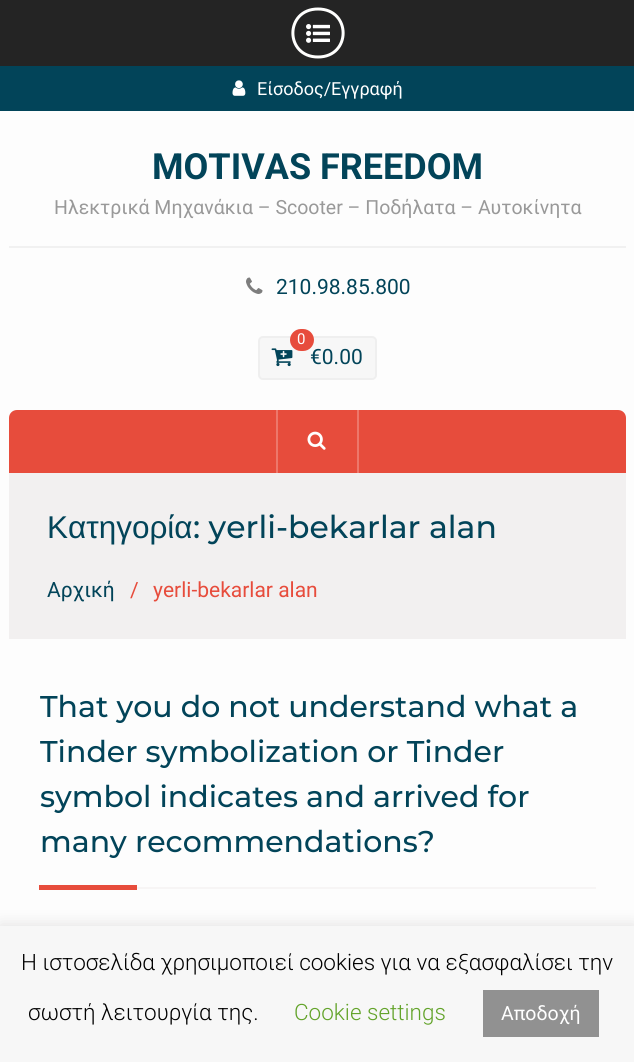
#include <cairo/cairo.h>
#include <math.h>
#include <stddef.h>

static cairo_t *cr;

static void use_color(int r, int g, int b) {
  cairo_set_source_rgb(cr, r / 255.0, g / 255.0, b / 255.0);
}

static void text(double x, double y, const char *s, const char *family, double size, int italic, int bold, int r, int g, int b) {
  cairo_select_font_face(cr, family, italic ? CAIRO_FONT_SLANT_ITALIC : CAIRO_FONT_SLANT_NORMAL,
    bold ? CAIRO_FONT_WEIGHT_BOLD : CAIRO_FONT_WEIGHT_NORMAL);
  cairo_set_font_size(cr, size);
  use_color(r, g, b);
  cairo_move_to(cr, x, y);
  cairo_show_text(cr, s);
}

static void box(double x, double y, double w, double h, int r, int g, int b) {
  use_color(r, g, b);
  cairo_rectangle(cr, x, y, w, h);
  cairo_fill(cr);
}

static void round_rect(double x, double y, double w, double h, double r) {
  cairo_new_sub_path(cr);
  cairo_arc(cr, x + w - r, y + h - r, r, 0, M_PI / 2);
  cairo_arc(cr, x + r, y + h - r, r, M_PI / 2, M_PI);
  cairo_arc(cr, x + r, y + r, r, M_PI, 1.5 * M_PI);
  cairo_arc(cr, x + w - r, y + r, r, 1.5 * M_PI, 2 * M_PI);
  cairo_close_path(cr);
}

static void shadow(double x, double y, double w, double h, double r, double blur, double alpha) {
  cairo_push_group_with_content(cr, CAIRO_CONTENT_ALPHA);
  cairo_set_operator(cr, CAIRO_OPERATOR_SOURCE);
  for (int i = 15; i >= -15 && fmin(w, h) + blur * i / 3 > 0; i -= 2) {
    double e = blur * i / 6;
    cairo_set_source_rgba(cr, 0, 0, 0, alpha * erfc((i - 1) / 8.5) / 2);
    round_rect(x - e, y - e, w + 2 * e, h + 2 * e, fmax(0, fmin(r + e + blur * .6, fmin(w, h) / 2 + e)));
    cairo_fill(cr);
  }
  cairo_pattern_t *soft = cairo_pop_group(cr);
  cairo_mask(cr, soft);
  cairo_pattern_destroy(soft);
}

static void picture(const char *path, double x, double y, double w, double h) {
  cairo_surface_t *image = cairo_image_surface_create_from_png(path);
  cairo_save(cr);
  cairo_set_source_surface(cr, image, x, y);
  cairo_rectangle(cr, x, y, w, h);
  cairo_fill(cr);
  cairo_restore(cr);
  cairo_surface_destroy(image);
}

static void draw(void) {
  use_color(253, 253, 253);
  cairo_paint(cr);
  box(0, 0, 634, 66, 36, 36, 36);
  cairo_new_path(cr);
  cairo_move_to(cr, 318, 9);
  cairo_curve_to(cr, 351.5, 9, 351.5, 57, 318, 57);
  cairo_curve_to(cr, 284.5, 57, 284.5, 9, 318, 9);
  cairo_close_path(cr);
  use_color(255, 255, 254);
  cairo_set_line_width(cr, 3);
  cairo_stroke(cr);
  picture("img_01.png", 306, 24, 24, 19);
  box(0, 66, 634, 45, 2, 68, 89);
  picture("img_02.png", 232, 80, 14, 16);
  box(9, 246, 617, 2, 241, 241, 241);
  picture("img_03.png", 246, 277, 17, 17);
  use_color(247, 247, 247);
  round_rect(259, 337, 117, 42, 4);
  cairo_fill_preserve(cr);
  use_color(239, 239, 239);
  cairo_set_line_width(cr, 2);
  cairo_stroke(cr);
  picture("img_04.png", 271, 348, 22, 19);
  use_color(231, 76, 60);
  cairo_new_path(cr);
  cairo_move_to(cr, 17, 410);
  cairo_line_to(cr, 618, 410);
  cairo_curve_to(cr, 622.5, 410, 626, 413.5, 626, 418);
  cairo_line_to(cr, 626, 473);
  cairo_line_to(cr, 9, 473);
  cairo_line_to(cr, 9, 418);
  cairo_curve_to(cr, 9, 413.5, 12.5, 410, 17, 410);
  cairo_close_path(cr);
  cairo_fill(cr);
  box(357, 410, 2, 63, 237, 119, 107);
  box(276, 410, 2, 63, 237, 119, 107);
  picture("img_05.png", 307, 431, 19, 19);
  box(9, 473, 617, 166, 242, 240, 240);
  box(137, 887, 459, 2, 247, 245, 245);
  box(39, 885, 98, 5, 231, 76, 60);
  use_color(172, 171, 171);
  shadow(0, 924, 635, 137, 0, 7.5, 0.3);
  box(0, 926, 634, 136, 247, 247, 247);
  box(483, 990, 116, 47, 145, 145, 145);
  text(257, 95, "Είσοδος/Εγγραφή", "Roboto", 18, 0, 0, 255, 255, 255);
  text(152, 179, "MOTIVAS FREEDOM", "Roboto", 36, 0, 1, 2, 68, 89);
  text(54, 214, "Ηλεκτρικά Μηχανάκια – Scooter – Ποδήλατα – Αυτοκίνητα", "Roboto", 19.5, 0, 0, 153, 153, 153);
  text(276, 294, "210.98.85.800", "Roboto", 21, 0, 0, 2, 68, 89);
  text(310, 364, "€0.00", "Roboto", 21, 0, 0, 2, 68, 89);
  use_color(231, 76, 60);
  round_rect(290, 329, 24, 22, 11);
  cairo_fill(cr);
  text(297, 344, "0", "Roboto", 15, 0, 0, 255, 255, 255);
  text(47, 538, "Κατηγορία", "Liberation Sans", 31.5, 0, 0, 2, 68, 89);
  text(193, 538, ": yerli-bekarlar alan", "Montserrat Medium", 31.5, 0, 0, 2, 68, 89);
  text(47, 597, "Αρχική", "Roboto", 21, 0, 0, 2, 68, 89);
  text(130, 597, "/", "Roboto", 21, 0, 0, 231, 76, 60);
  text(153, 597, "yerli-bekarlar alan", "Roboto", 21, 0, 0, 231, 76, 60);
  text(40, 717, "That you do not understand what a", "Montserrat Medium", 30, 0, 0, 2, 68, 89);
  text(40, 762, "Tinder symbolization or Tinder", "Montserrat Medium", 30, 0, 0, 2, 68, 89);
  text(40, 807, "symbol indicates and arrived for", "Montserrat Medium", 30, 0, 0, 2, 68, 89);
  text(40, 852, "many recommendations?", "Montserrat Medium", 30, 0, 0, 2, 68, 89);
  text(21, 970, "Η ιστοσελίδα χρησιμοποιεί cookies για να εξασφαλίσει την", "Roboto Light", 22.5, 0, 0, 0, 0, 0);
  text(28, 1020, "σωστή λειτουργία της.", "Roboto Light", 22.5, 0, 0, 0, 0, 0);
  text(294, 1020, "Cookie settings", "Roboto Light", 22.5, 0, 0, 98, 163, 41);
  text(501, 1020, "Αποδοχή", "Roboto", 19.5, 0, 0, 255, 255, 255);
}

int main(void) {
  cairo_surface_t *surface = cairo_image_surface_create(CAIRO_FORMAT_RGB24, 634, 1062);
  cr = cairo_create(surface);
  cairo_font_options_t *options = cairo_font_options_create();
  cairo_font_options_set_hint_metrics(options, CAIRO_HINT_METRICS_OFF);
  cairo_font_options_set_hint_style(options, CAIRO_HINT_STYLE_NONE);
  cairo_set_font_options(cr, options);
  cairo_set_miter_limit(cr, 4);
  draw();
  cairo_surface_write_to_png(surface, "out.png");
  cairo_font_options_destroy(options);
  cairo_destroy(cr);
  cairo_surface_destroy(surface);
  return 0;
}
